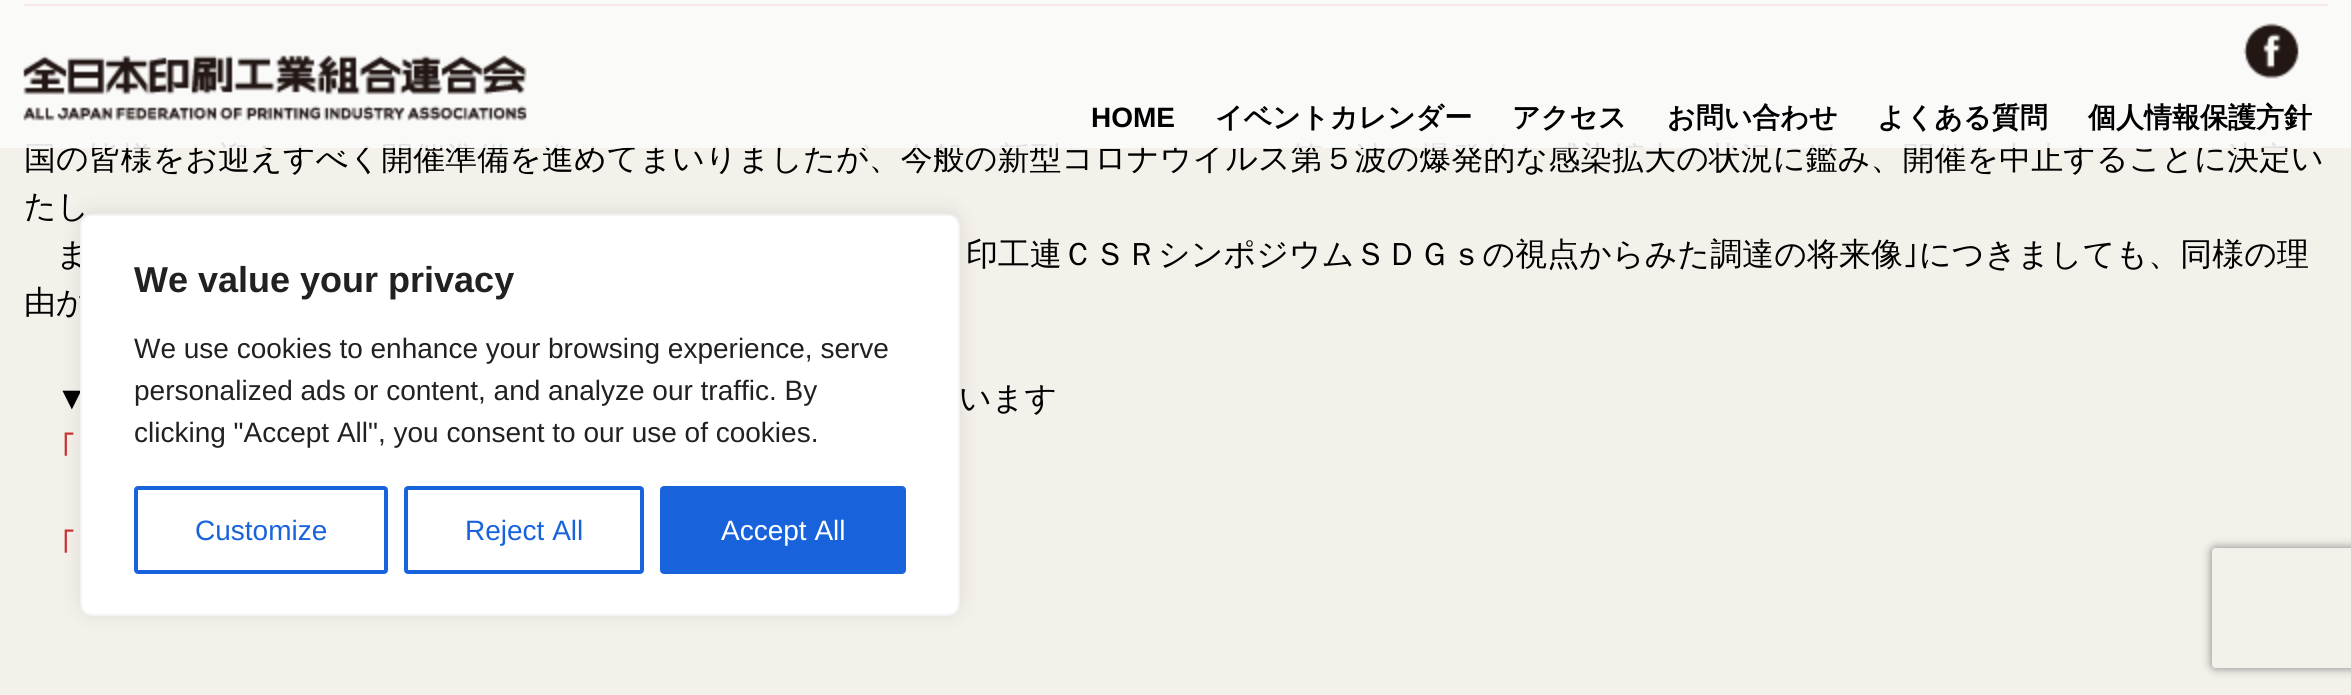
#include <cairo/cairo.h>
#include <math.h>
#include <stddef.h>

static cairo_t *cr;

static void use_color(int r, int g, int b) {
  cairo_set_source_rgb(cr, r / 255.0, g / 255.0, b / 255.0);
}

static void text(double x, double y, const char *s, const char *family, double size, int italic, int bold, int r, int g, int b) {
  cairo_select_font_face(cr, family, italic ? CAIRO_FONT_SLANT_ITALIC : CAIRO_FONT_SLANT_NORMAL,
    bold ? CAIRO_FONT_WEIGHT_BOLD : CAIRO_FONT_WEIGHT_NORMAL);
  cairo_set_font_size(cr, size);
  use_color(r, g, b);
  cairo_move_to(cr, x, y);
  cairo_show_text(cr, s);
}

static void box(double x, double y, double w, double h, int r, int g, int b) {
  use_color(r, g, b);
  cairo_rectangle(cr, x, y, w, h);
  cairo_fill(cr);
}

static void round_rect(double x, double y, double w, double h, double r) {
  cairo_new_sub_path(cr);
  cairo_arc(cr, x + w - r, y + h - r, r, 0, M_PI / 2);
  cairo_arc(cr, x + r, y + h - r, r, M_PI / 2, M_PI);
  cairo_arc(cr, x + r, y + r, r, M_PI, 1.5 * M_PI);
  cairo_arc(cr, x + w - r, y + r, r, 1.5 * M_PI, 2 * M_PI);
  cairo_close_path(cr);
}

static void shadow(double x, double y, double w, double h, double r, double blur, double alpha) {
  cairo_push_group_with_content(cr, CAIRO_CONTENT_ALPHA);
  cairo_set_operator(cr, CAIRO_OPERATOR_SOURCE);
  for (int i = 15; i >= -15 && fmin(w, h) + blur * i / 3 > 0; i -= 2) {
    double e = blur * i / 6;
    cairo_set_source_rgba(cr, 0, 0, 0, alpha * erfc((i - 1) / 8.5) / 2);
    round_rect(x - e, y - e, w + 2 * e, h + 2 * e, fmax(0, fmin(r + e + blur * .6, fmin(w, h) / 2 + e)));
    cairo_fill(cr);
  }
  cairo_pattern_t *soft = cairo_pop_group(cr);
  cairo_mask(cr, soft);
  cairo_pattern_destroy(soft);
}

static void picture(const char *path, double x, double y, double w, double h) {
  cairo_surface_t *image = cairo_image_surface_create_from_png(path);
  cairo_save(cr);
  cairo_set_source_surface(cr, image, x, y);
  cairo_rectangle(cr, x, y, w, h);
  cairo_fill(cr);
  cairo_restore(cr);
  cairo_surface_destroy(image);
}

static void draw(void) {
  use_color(244, 240, 234);
  cairo_paint(cr);
  box(24, 4, 2304, 2, 210, 52, 50);
  use_color(172, 171, 171);
  shadow(80, 212, 880, 402, 12, 10, 0.3);
  cairo_save(cr);
  cairo_set_fill_rule(cr, CAIRO_FILL_RULE_EVEN_ODD);
  cairo_new_path(cr);
  cairo_move_to(cr, 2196, 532);
  cairo_line_to(cr, 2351, 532);
  cairo_line_to(cr, 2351, 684);
  cairo_line_to(cr, 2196, 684);
  cairo_close_path(cr);
  cairo_move_to(cr, 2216, 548);
  cairo_line_to(cr, 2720, 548);
  cairo_curve_to(cr, 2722, 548, 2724, 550, 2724, 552);
  cairo_line_to(cr, 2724, 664);
  cairo_curve_to(cr, 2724, 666, 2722, 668, 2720, 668);
  cairo_line_to(cr, 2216, 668);
  cairo_curve_to(cr, 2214, 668, 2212, 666, 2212, 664);
  cairo_line_to(cr, 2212, 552);
  cairo_curve_to(cr, 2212, 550, 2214, 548, 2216, 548);
  cairo_close_path(cr);
  cairo_clip(cr);
  use_color(128, 128, 128);
  shadow(2212, 548, 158, 120, 4, 5, 1);
  cairo_restore(cr);
  text(24, 169, "国の皆様をお迎えすべく開催準備を進めてまいりましたが、今般の新型コロナウイルス第５波の爆発的な感染拡大の状況に鑑み、開催を中止することに決定い", "WenQuanYi Zen Hei Medium", 32, 0, 0, 0, 0, 0);
  cairo_set_source_rgba(cr, 0.984, 0.984, 0.984, 0.9);
  cairo_rectangle(cr, 0, 0, 2351, 148);
  cairo_fill(cr);
  text(2088, 127, "個人情報保護方針", "WenQuanYi Zen Hei", 28, 0, 1, 0, 0, 0);
  text(1877, 127, "よくある質問", "WenQuanYi Zen Hei", 28, 0, 1, 0, 0, 0);
  text(1667, 127, "お問い合わせ", "WenQuanYi Zen Hei", 28, 0, 1, 0, 0, 0);
  text(1512, 127, "アクセス", "WenQuanYi Zen Hei", 28, 0, 1, 0, 0, 0);
  text(1215, 127, "イベントカレンダー", "WenQuanYi Zen Hei", 28, 0, 1, 0, 0, 0);
  text(1091, 127, "HOME", "Liberation Sans", 28, 0, 1, 0, 0, 0);
  picture("img_02.png", 2243, 23, 56, 56);
  picture("img_01.png", 23, 55, 504, 66);
  text(24, 217, "たし", "WenQuanYi Zen Hei Medium", 32, 0, 0, 0, 0, 0);
  text(56, 265, "ま", "WenQuanYi Zen Hei Medium", 32, 0, 0, 0, 0, 0);
  text(966, 265, "印工連ＣＳＲシンポジウムＳＤＧｓの視点からみた調達の将来像", "WenQuanYi Zen Hei Medium", 32, 0, 0, 0, 0, 0);
  text(1903, 265, "｣", "IPAPGothic", 32, 0, 0, 0, 0, 0);
  text(1919, 265, "につきましても、同様の理", "WenQuanYi Zen Hei Medium", 32, 0, 0, 0, 0, 0);
  text(24, 313, "由か", "WenQuanYi Zen Hei Medium", 32, 0, 0, 0, 0, 0);
  text(56, 409, "▼", "Liberation Sans", 32, 0, 0, 0, 0, 0);
  text(959, 409, "います", "WenQuanYi Zen Hei Medium", 32, 0, 0, 0, 0, 0);
  text(60, 459, "｢", "IPAPGothic", 32, 0, 0, 198, 53, 50);
  text(60, 556, "｢", "IPAPGothic", 32, 0, 0, 198, 53, 50);
  use_color(255, 255, 255);
  round_rect(81, 215, 878, 400, 11);
  cairo_fill_preserve(cr);
  use_color(244, 244, 244);
  cairo_stroke(cr);
  text(134, 292, "We value your privacy", "Liberation Sans", 36, 0, 1, 33, 33, 33);
  text(134, 358, "We use cookies to enhance your browsing experience, serve", "Liberation Sans", 28, 0, 0, 33, 33, 33);
  text(134, 400, "personalized ads or content, and analyze our traffic. By", "Liberation Sans", 28, 0, 0, 33, 33, 33);
  text(134, 442, "clicking \"Accept All\", you consent to our use of cookies.", "Liberation Sans", 28, 0, 0, 33, 33, 33);
  round_rect(136, 488, 250, 84, 2);
  use_color(24, 99, 220);
  cairo_set_line_width(cr, 4);
  cairo_stroke(cr);
  text(195, 540, "Customize", "Liberation Sans", 28, 0, 0, 24, 99, 220);
  round_rect(406, 488, 236, 84, 2);
  cairo_stroke(cr);
  text(465, 540, "Reject All", "Liberation Sans", 28, 0, 0, 24, 99, 220);
  round_rect(662, 488, 242, 84, 2);
  cairo_fill_preserve(cr);
  cairo_stroke(cr);
  text(721, 540, "Accept All", "Liberation Sans", 28, 0, 0, 255, 255, 255);
}

int main(void) {
  cairo_surface_t *surface = cairo_image_surface_create(CAIRO_FORMAT_RGB24, 2351, 695);
  cr = cairo_create(surface);
  cairo_font_options_t *options = cairo_font_options_create();
  cairo_font_options_set_hint_metrics(options, CAIRO_HINT_METRICS_OFF);
  cairo_font_options_set_hint_style(options, CAIRO_HINT_STYLE_NONE);
  cairo_set_font_options(cr, options);
  cairo_set_miter_limit(cr, 4);
  draw();
  cairo_surface_write_to_png(surface, "out.png");
  cairo_font_options_destroy(options);
  cairo_destroy(cr);
  cairo_surface_destroy(surface);
  return 0;
}
